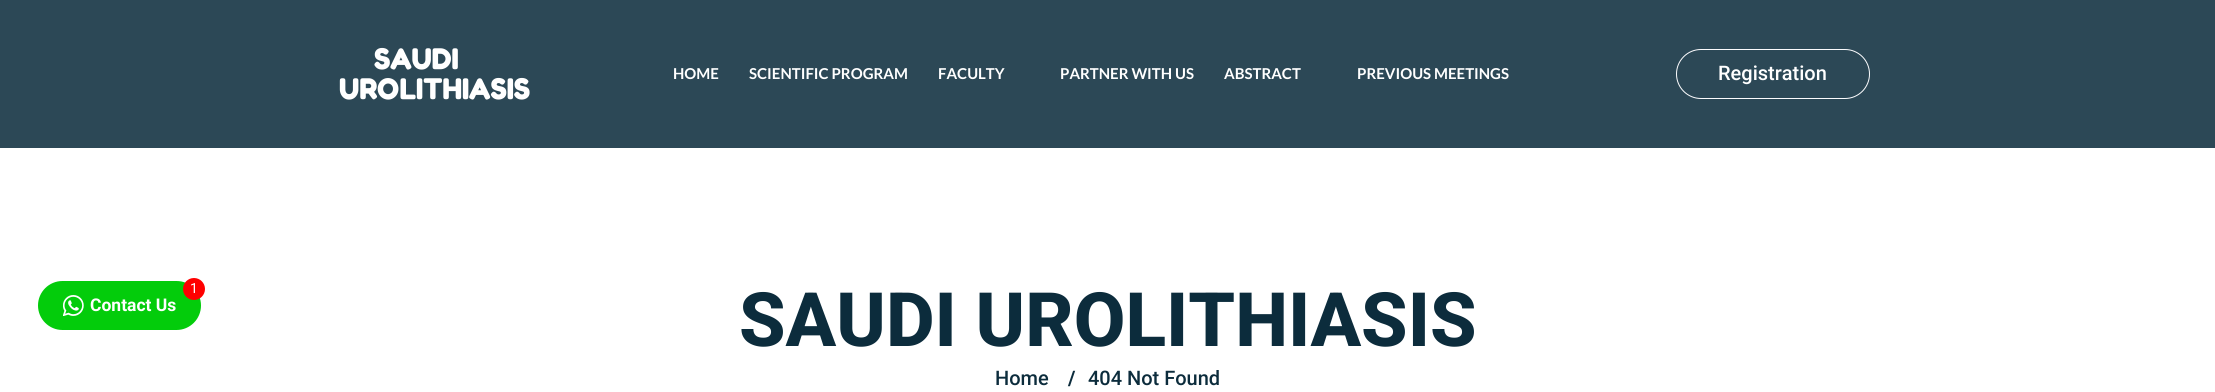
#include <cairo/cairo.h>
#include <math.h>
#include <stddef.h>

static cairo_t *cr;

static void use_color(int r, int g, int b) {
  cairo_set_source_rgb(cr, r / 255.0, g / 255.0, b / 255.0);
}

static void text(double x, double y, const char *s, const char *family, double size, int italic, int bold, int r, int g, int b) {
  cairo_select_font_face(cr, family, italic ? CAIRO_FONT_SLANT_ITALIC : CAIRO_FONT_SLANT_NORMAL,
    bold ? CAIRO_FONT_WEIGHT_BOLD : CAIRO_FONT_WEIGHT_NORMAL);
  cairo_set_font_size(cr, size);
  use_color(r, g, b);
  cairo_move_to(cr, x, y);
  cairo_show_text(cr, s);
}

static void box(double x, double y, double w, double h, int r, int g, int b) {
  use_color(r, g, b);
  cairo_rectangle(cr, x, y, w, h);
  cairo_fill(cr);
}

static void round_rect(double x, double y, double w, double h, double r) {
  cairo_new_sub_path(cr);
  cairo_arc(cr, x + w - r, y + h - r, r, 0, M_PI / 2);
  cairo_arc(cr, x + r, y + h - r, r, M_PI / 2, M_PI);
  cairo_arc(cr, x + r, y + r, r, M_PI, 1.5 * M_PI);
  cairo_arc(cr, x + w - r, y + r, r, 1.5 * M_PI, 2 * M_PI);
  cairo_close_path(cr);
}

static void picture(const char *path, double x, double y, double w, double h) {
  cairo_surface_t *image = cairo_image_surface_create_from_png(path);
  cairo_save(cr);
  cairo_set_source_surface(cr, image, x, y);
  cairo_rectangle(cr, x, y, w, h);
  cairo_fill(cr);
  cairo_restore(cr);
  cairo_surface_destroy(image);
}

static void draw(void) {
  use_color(255, 255, 255);
  cairo_paint(cr);
  box(0, 0, 2215, 148, 44, 72, 86);
  round_rect(1676.5, 49.5, 193, 49, 24.5);
  use_color(251, 251, 253);
  cairo_set_line_width(cr, 1);
  cairo_stroke(cr);
  use_color(3, 204, 11);
  round_rect(38, 281, 163, 49, 24.5);
  cairo_fill(cr);
  use_color(255, 0, 0);
  cairo_arc(cr, 194, 289, 11, 0, 2 * M_PI);
  cairo_fill(cr);
  picture("img_01.png", 63, 295, 21, 21);
  text(374, 69, "SAUDI", "Fredoka", 30, 0, 1, 255, 255, 255);
  text(339, 99, "UROLITHIASIS", "Fredoka", 30, 0, 1, 255, 255, 255);
  text(673, 79, "HOME", "Lato", 15, 0, 1, 255, 255, 255);
  text(749, 79, "SCIENTIFIC PROGRAM", "Lato", 15, 0, 1, 255, 255, 255);
  text(938, 79, "FACULTY", "Lato", 15, 0, 1, 255, 255, 255);
  text(1060, 79, "PARTNER WITH US", "Lato", 15, 0, 1, 255, 255, 255);
  text(1224, 79, "ABSTRACT", "Lato", 15, 0, 1, 255, 255, 255);
  text(1357, 79, "PREVIOUS MEETINGS", "Lato", 15, 0, 1, 255, 255, 255);
  text(1718, 80, "Registration", "Roboto Medium", 20, 0, 0, 255, 255, 255);
  text(190, 293, "1", "Roboto", 14, 0, 0, 255, 255, 255);
  text(90, 311, "Contact Us", "Roboto", 17.5, 0, 1, 255, 255, 255);
  text(739, 346, "SAUDI UROLITHIASIS", "Roboto ExtraBold", 75, 0, 0, 12, 44, 60);
  text(995, 385, "Home", "Roboto Medium", 20, 0, 0, 12, 44, 60);
  text(1068, 385, "/", "Roboto", 20, 0, 1, 12, 44, 60);
  text(1088, 385, "404 Not Found", "Roboto Medium", 20, 0, 0, 12, 44, 60);
}

int main(void) {
  cairo_surface_t *surface = cairo_image_surface_create(CAIRO_FORMAT_RGB24, 2215, 392);
  cr = cairo_create(surface);
  cairo_font_options_t *options = cairo_font_options_create();
  cairo_font_options_set_hint_metrics(options, CAIRO_HINT_METRICS_OFF);
  cairo_font_options_set_hint_style(options, CAIRO_HINT_STYLE_NONE);
  cairo_set_font_options(cr, options);
  cairo_set_miter_limit(cr, 4);
  draw();
  cairo_surface_write_to_png(surface, "out.png");
  cairo_font_options_destroy(options);
  cairo_destroy(cr);
  cairo_surface_destroy(surface);
  return 0;
}
